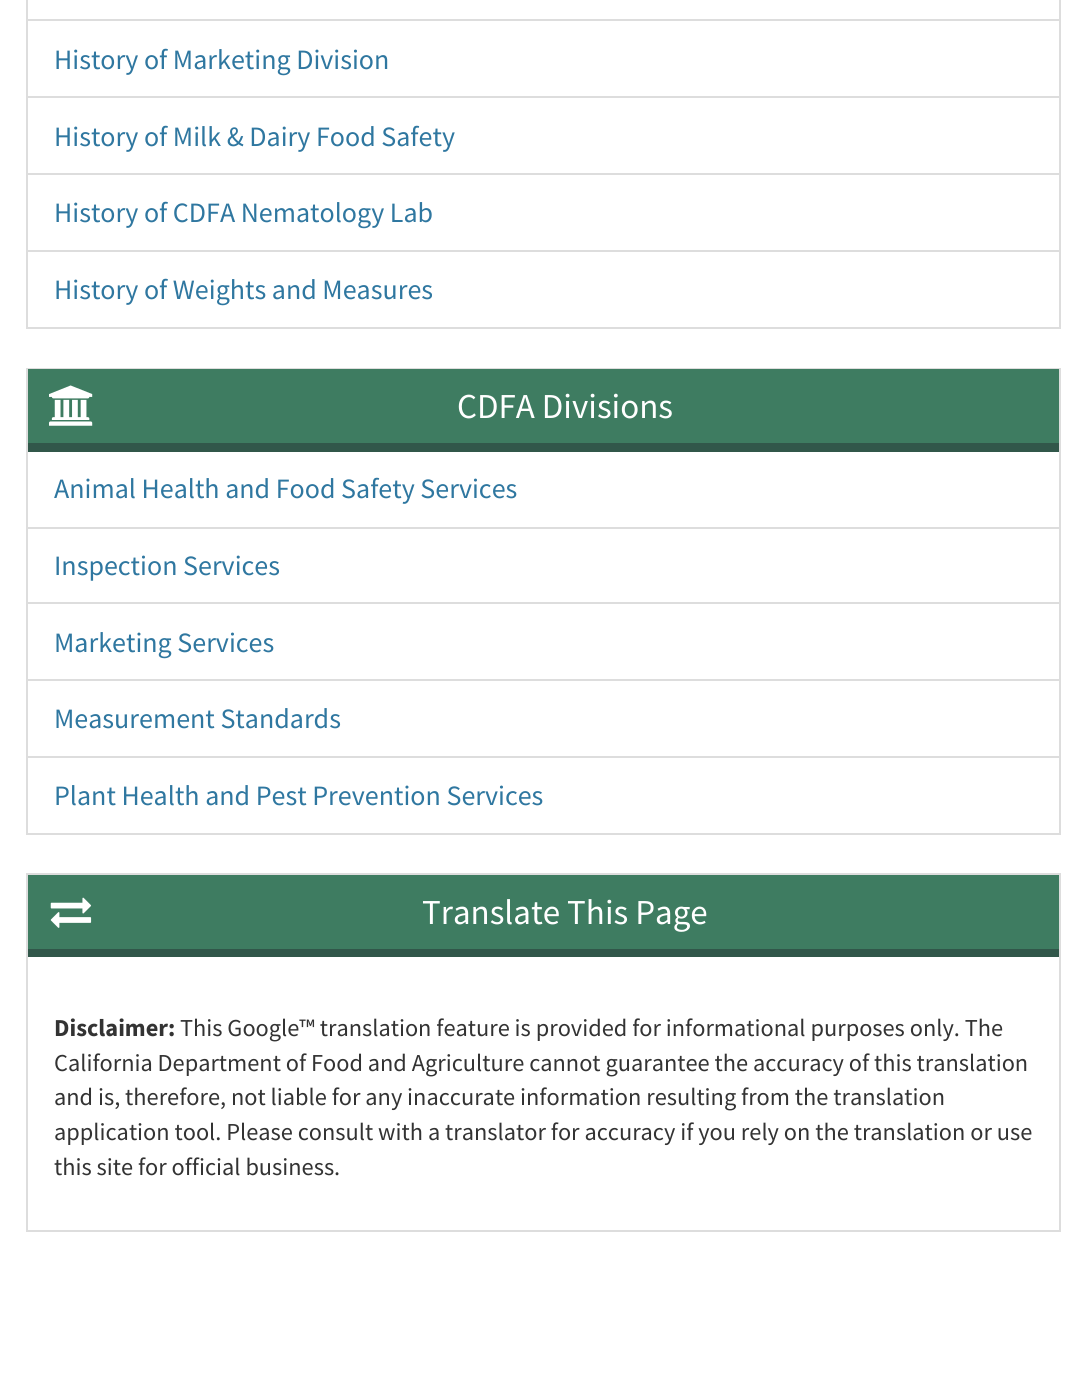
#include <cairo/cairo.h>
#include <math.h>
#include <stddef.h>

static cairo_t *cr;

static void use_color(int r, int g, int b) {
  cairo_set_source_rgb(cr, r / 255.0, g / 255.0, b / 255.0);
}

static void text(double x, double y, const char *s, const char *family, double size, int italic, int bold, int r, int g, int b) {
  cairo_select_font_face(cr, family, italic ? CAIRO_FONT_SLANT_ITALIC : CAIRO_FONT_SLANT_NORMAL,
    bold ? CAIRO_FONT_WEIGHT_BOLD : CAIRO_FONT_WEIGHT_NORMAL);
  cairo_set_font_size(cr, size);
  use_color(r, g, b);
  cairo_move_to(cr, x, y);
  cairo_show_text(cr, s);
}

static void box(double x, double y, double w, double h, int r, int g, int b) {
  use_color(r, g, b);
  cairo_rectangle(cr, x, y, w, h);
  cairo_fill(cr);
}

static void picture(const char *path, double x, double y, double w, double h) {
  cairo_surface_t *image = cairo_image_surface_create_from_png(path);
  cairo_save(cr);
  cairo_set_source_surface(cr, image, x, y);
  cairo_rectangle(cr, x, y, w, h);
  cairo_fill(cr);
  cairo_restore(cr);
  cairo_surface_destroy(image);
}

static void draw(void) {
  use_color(255, 255, 255);
  cairo_paint(cr);
  cairo_rectangle(cr, 27, -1, 1033, 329);
  use_color(221, 221, 221);
  cairo_stroke(cr);
  box(28, 19, 1031, 2, 221, 221, 221);
  box(28, 96, 1031, 2, 221, 221, 221);
  box(28, 173, 1031, 2, 221, 221, 221);
  box(28, 250, 1031, 2, 221, 221, 221);
  cairo_rectangle(cr, 27, 369, 1033, 465);
  cairo_stroke(cr);
  box(28, 369, 1031, 74, 62, 124, 97);
  box(28, 443, 1031, 9, 49, 87, 74);
  picture("img_01.png", 49, 385, 44, 41);
  box(28, 527, 1031, 2, 221, 221, 221);
  box(28, 602, 1031, 2, 221, 221, 221);
  box(28, 679, 1031, 2, 221, 221, 221);
  box(28, 756, 1031, 2, 221, 221, 221);
  cairo_rectangle(cr, 27, 874, 1033, 357);
  cairo_stroke(cr);
  box(28, 875, 1031, 74, 62, 124, 97);
  box(28, 949, 1031, 8, 49, 87, 74);
  picture("img_02.png", 50, 897, 42, 31);
  text(54, 69, "History of Marketing Division", "Source Sans Pro", 28, 0, 0, 47, 119, 160);
  text(54, 146, "History of Milk & Dairy Food Safety", "Source Sans Pro", 28, 0, 0, 47, 119, 160);
  text(54, 222, "History of CDFA Nematology Lab", "Source Sans Pro", 28, 0, 0, 47, 119, 160);
  text(54, 299, "History of Weights and Measures", "Source Sans Pro", 28, 0, 0, 47, 119, 160);
  text(457, 418, "CDFA Divisions", "Source Sans Pro", 35, 0, 0, 255, 255, 255);
  text(54, 498, "Animal Health and Food Safety Services", "Source Sans Pro", 28, 0, 0, 47, 119, 160);
  text(54, 575, "Inspection Services", "Source Sans Pro", 28, 0, 0, 47, 119, 160);
  text(54, 652, "Marketing Services", "Source Sans Pro", 28, 0, 0, 47, 119, 160);
  text(54, 728, "Measurement Standards", "Source Sans Pro", 28, 0, 0, 47, 119, 160);
  text(54, 805, "Plant Health and Pest Prevention Services", "Source Sans Pro", 28, 0, 0, 47, 119, 160);
  text(422, 924, "Translate This Page", "Source Sans Pro", 35, 0, 0, 255, 255, 255);
  text(54, 1036, "Disclaimer:", "Source Sans Pro", 24.35, 0, 1, 51, 51, 51);
  text(180, 1036, "This Google™ translation feature is provided for informational purposes only. The", "Source Sans Pro", 24.35, 0, 0, 51, 51, 51);
  text(54, 1071, "California Department of Food and Agriculture cannot guarantee the accuracy of this translation", "Source Sans Pro", 24.35, 0, 0, 51, 51, 51);
  text(54, 1105, "and is, therefore, not liable for any inaccurate information resulting from the translation", "Source Sans Pro", 24.35, 0, 0, 51, 51, 51);
  text(54, 1140, "application tool. Please consult with a translator for accuracy if you rely on the translation or use", "Source Sans Pro", 24.35, 0, 0, 51, 51, 51);
  text(54, 1175, "this site for official business.", "Source Sans Pro", 24.35, 0, 0, 51, 51, 51);
}

int main(void) {
  cairo_surface_t *surface = cairo_image_surface_create(CAIRO_FORMAT_RGB24, 1086, 1373);
  cr = cairo_create(surface);
  cairo_font_options_t *options = cairo_font_options_create();
  cairo_font_options_set_hint_metrics(options, CAIRO_HINT_METRICS_OFF);
  cairo_font_options_set_hint_style(options, CAIRO_HINT_STYLE_NONE);
  cairo_set_font_options(cr, options);
  cairo_set_miter_limit(cr, 4);
  draw();
  cairo_surface_write_to_png(surface, "out.png");
  cairo_font_options_destroy(options);
  cairo_destroy(cr);
  cairo_surface_destroy(surface);
  return 0;
}
